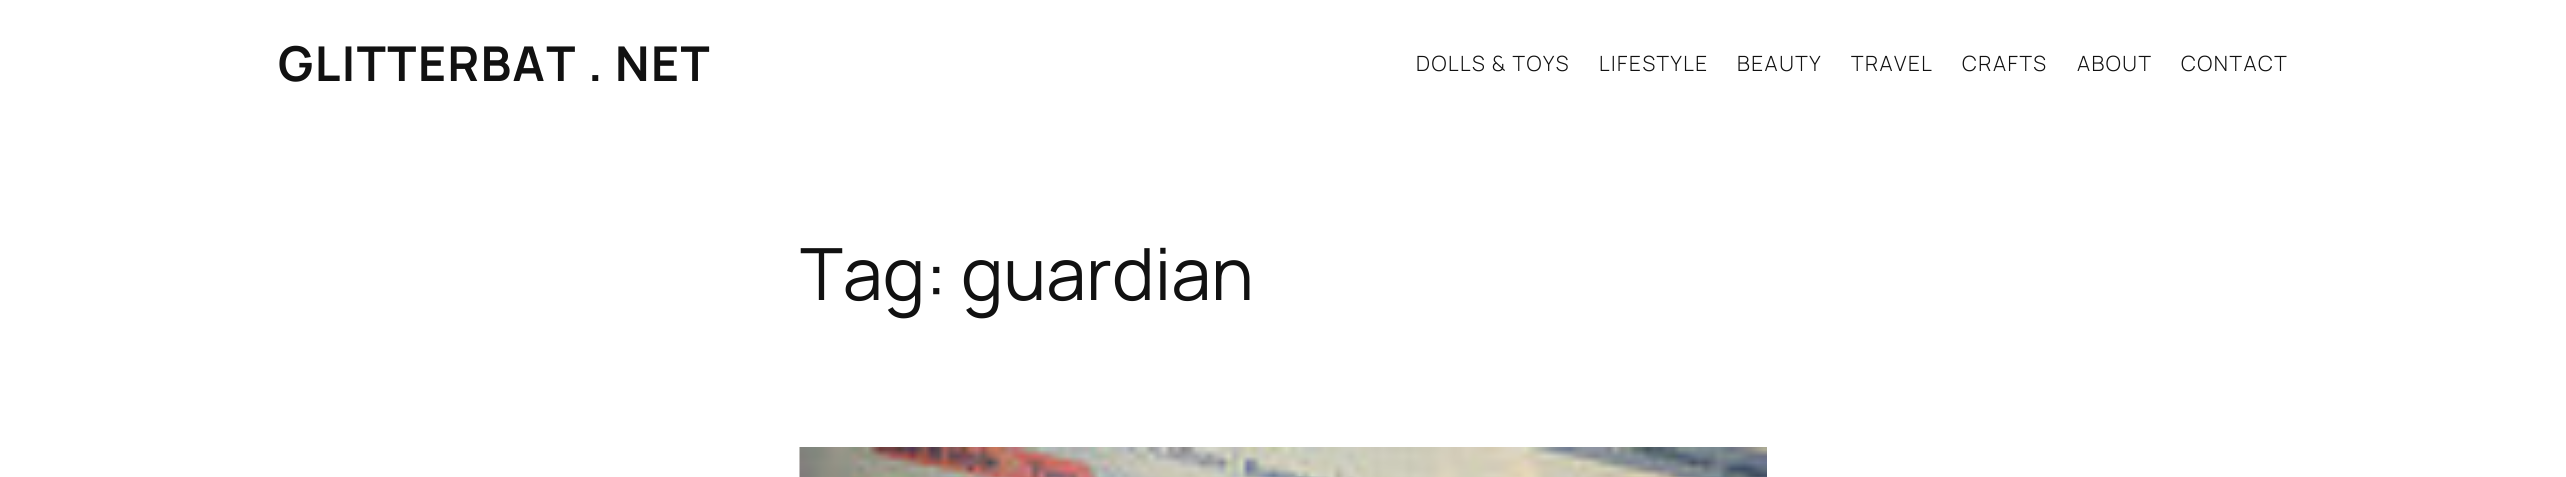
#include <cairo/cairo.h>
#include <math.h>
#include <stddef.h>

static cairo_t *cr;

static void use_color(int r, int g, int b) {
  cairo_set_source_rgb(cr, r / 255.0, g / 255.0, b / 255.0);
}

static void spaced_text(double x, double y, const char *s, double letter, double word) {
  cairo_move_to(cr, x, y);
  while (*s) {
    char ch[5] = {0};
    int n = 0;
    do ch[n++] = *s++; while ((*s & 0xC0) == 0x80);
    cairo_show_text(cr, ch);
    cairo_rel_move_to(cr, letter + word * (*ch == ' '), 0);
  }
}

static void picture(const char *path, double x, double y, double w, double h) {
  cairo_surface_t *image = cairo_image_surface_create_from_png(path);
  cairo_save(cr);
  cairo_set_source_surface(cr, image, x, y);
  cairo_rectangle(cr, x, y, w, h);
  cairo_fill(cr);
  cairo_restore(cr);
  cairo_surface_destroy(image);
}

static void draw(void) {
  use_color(255, 255, 255);
  cairo_paint(cr);
  picture("img_01.png", 799, 447, 968, 30);
  cairo_select_font_face(cr, "Manrope", CAIRO_FONT_SLANT_NORMAL, CAIRO_FONT_WEIGHT_BOLD);
  cairo_set_font_size(cr, 48);
  use_color(17, 17, 17);
  spaced_text(278, 81, "GLITTERBAT . NET", 1.5, 0);
  cairo_select_font_face(cr, "Manrope Light", CAIRO_FONT_SLANT_NORMAL, CAIRO_FONT_WEIGHT_NORMAL);
  cairo_set_font_size(cr, 21);
  spaced_text(1416, 71, "DOLLS & TOYS", 1.5, 0);
  spaced_text(1599, 71, "LIFESTYLE", 1.5, 0);
  spaced_text(1737, 71, "BEAUTY", 1.5, 0);
  spaced_text(1851, 71, "TRAVEL", 1.5, 0);
  spaced_text(1962, 71, "CRAFTS", 1.5, 0);
  spaced_text(2077, 71, "ABOUT", 1.5, 0);
  spaced_text(2181, 71, "CONTACT", 1.5, 0);
  cairo_select_font_face(cr, "Manrope", CAIRO_FONT_SLANT_NORMAL, CAIRO_FONT_WEIGHT_NORMAL);
  cairo_set_font_size(cr, 72);
  spaced_text(800, 300, "Tag: guardian", -0.1, 0);
}

int main(void) {
  cairo_surface_t *surface = cairo_image_surface_create(CAIRO_FORMAT_RGB24, 2566, 477);
  cr = cairo_create(surface);
  cairo_font_options_t *options = cairo_font_options_create();
  cairo_font_options_set_hint_metrics(options, CAIRO_HINT_METRICS_OFF);
  cairo_font_options_set_hint_style(options, CAIRO_HINT_STYLE_NONE);
  cairo_set_font_options(cr, options);
  cairo_set_miter_limit(cr, 4);
  draw();
  cairo_surface_write_to_png(surface, "out.png");
  cairo_font_options_destroy(options);
  cairo_destroy(cr);
  cairo_surface_destroy(surface);
  return 0;
}
